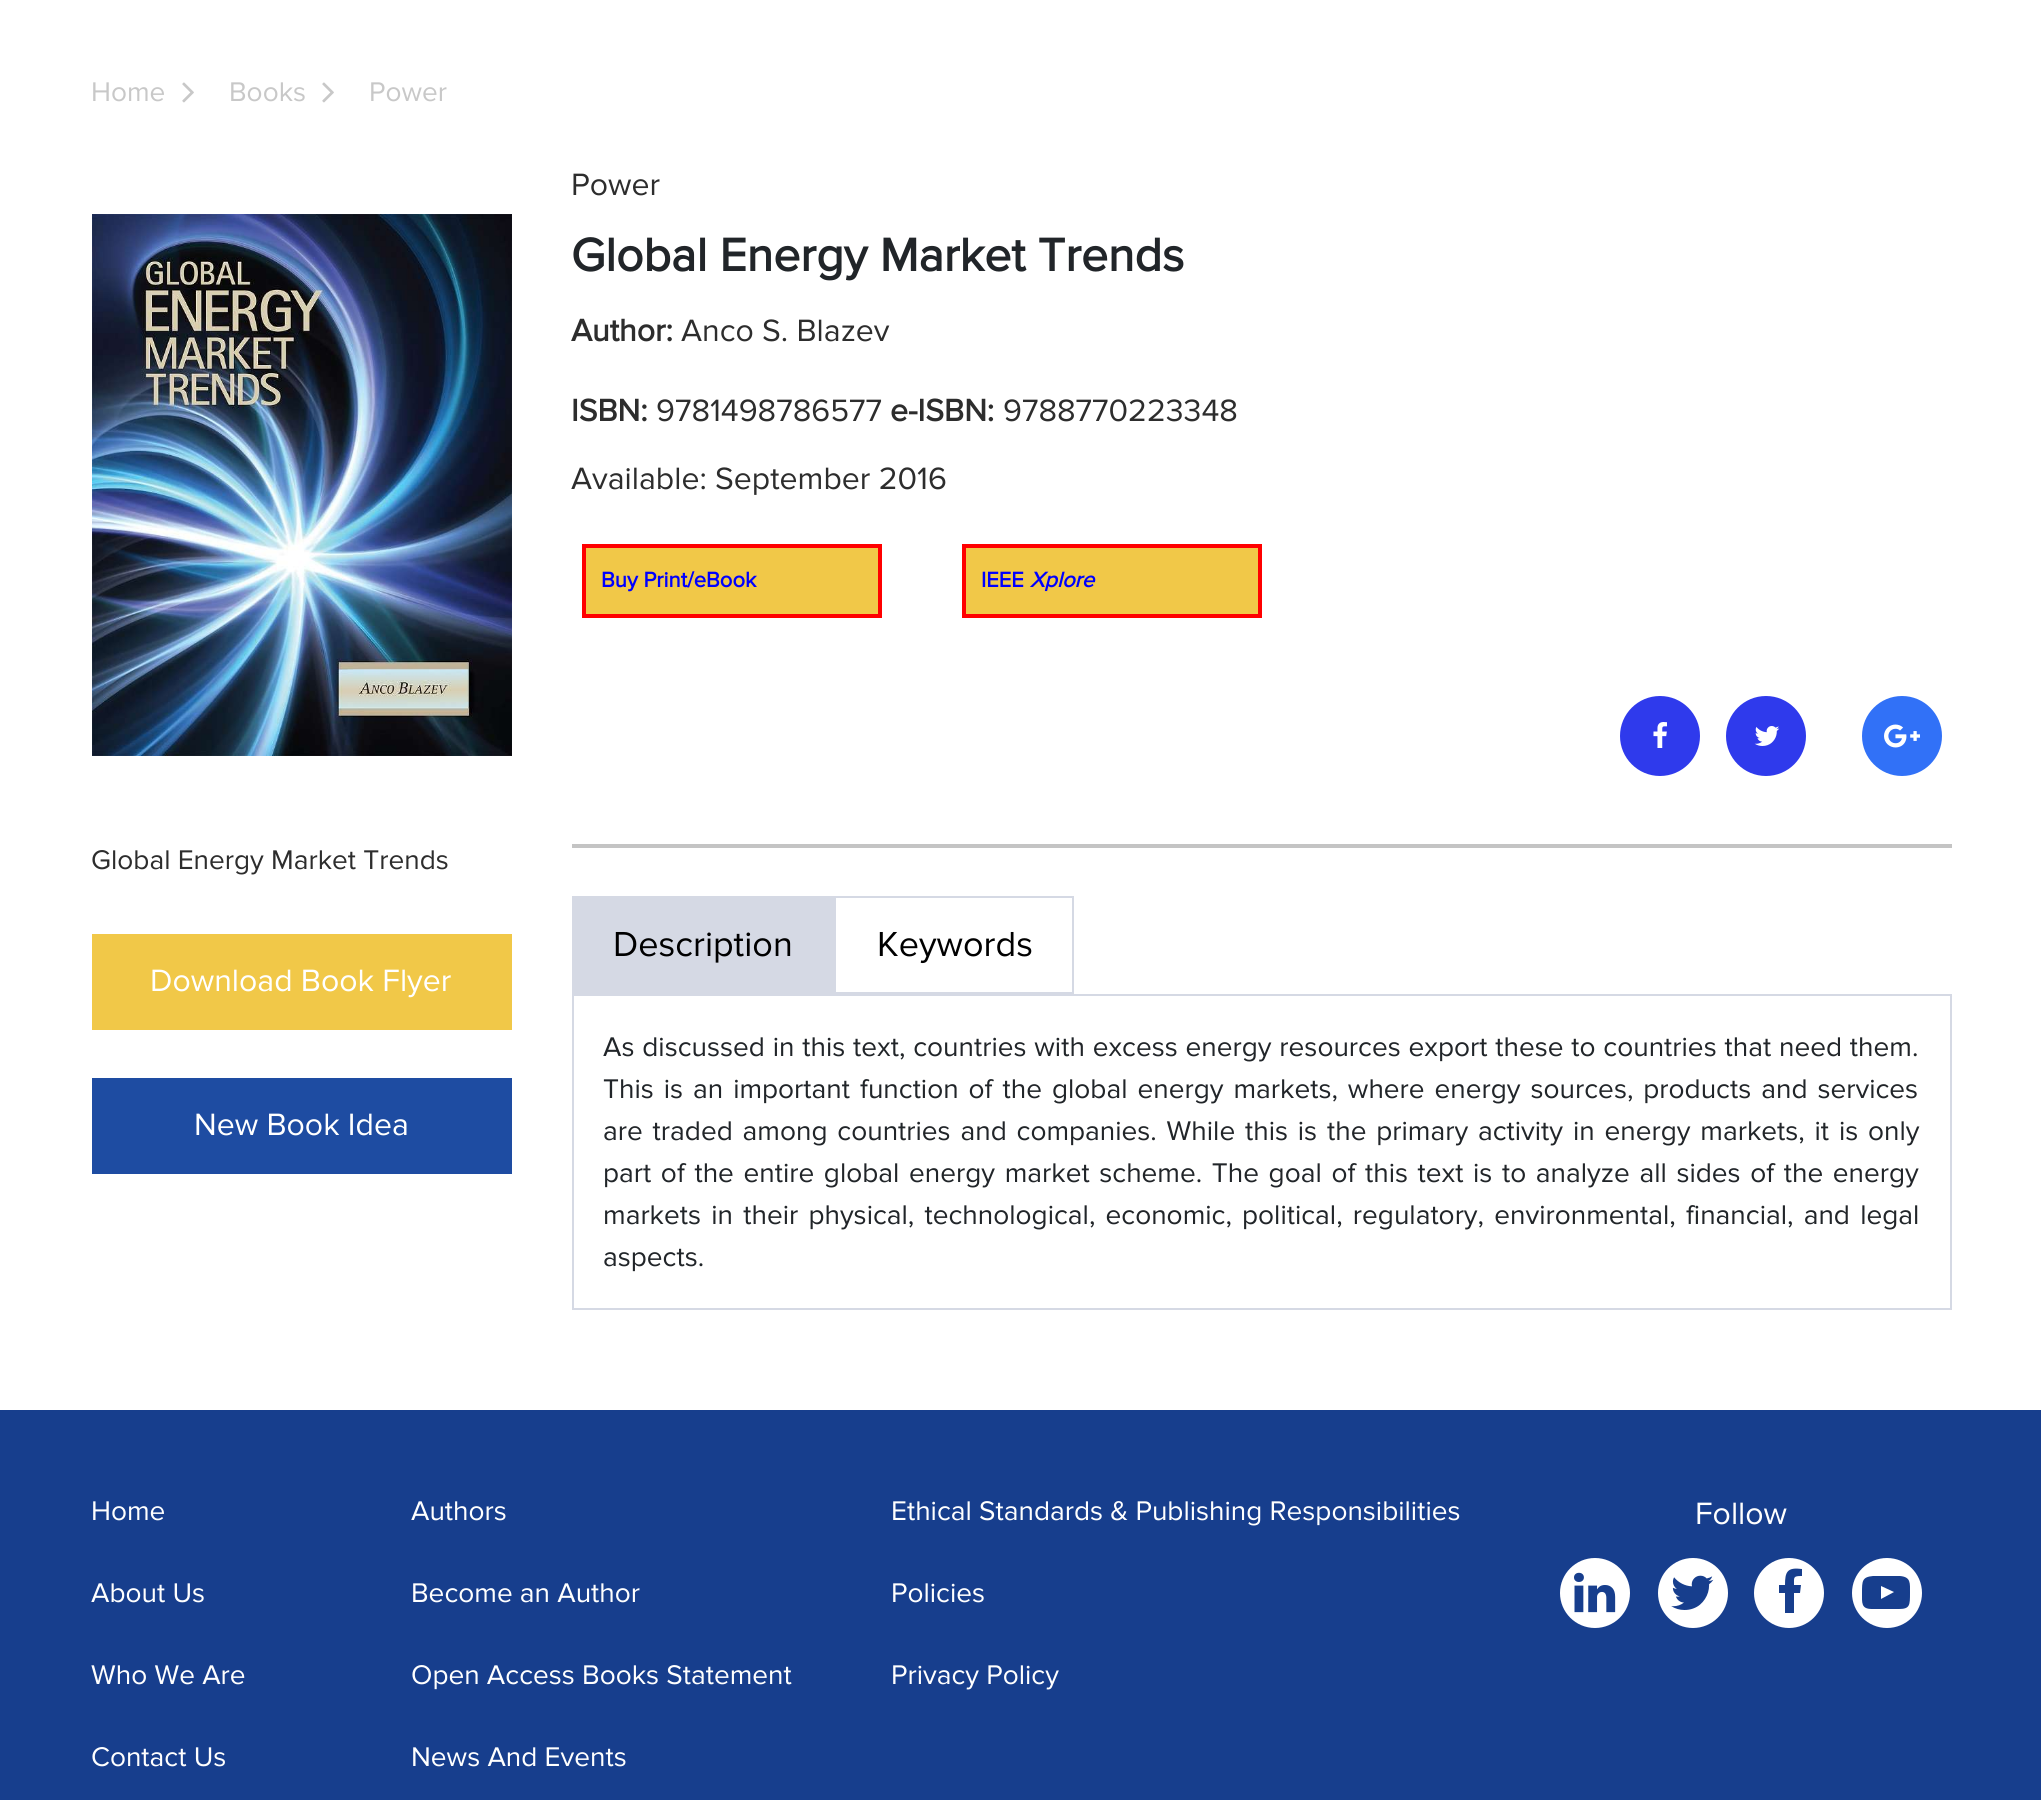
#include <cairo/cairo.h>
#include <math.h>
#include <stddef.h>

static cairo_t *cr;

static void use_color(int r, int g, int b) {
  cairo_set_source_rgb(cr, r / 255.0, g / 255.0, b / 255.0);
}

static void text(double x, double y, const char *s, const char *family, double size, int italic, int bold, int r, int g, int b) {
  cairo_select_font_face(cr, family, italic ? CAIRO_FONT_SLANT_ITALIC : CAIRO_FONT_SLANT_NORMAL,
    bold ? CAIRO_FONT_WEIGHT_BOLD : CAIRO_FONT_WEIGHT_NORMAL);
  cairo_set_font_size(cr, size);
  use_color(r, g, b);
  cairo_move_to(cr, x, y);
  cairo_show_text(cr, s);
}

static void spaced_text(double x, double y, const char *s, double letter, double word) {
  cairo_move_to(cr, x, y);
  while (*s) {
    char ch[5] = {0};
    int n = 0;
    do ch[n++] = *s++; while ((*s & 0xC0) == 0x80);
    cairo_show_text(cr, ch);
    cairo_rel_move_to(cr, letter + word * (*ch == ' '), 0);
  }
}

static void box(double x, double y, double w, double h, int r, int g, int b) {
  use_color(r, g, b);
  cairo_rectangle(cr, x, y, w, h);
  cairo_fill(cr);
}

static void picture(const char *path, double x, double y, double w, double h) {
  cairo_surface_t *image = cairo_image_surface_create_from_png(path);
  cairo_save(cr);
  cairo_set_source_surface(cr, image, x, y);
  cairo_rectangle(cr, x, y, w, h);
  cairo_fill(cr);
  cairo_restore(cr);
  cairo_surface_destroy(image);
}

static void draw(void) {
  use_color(255, 255, 255);
  cairo_paint(cr);
  picture("img_01.png", 182, 82, 12, 21);
  picture("img_01.png", 322, 82, 12, 21);
  picture("img_02.png", 92, 214, 420, 542);
  box(92, 934, 420, 96, 241, 200, 72);
  box(92, 1078, 420, 96, 30, 76, 162);
  use_color(241, 200, 72);
  cairo_rectangle(cr, 584, 546, 296, 70);
  cairo_fill_preserve(cr);
  use_color(255, 0, 0);
  cairo_set_line_width(cr, 4);
  cairo_stroke(cr);
  use_color(241, 200, 72);
  cairo_rectangle(cr, 964, 546, 296, 70);
  cairo_fill_preserve(cr);
  use_color(255, 0, 0);
  cairo_stroke(cr);
  use_color(47, 58, 236);
  cairo_arc(cr, 1660, 736, 40, 0, 2 * M_PI);
  cairo_fill(cr);
  picture("img_03.png", 1653, 722, 14, 26);
  cairo_arc(cr, 1766, 736, 40, 0, 2 * M_PI);
  cairo_fill(cr);
  picture("img_04.png", 1754, 726, 26, 20);
  use_color(49, 113, 247);
  cairo_arc(cr, 1902, 736, 40, 0, 2 * M_PI);
  cairo_fill(cr);
  picture("img_05.png", 1884, 724, 36, 24);
  box(572, 844, 1380, 4, 196, 196, 196);
  box(572, 896, 262, 98, 213, 217, 228);
  cairo_rectangle(cr, 835, 897, 238, 96);
  cairo_set_line_width(cr, 2);
  cairo_stroke(cr);
  cairo_rectangle(cr, 573, 995, 1378, 314);
  cairo_stroke(cr);
  box(0, 1410, 2041, 390, 23, 62, 141);
  use_color(255, 255, 255);
  cairo_arc(cr, 1595, 1593, 35, 0, 2 * M_PI);
  cairo_fill(cr);
  picture("img_06.png", 1574, 1572, 42, 41);
  cairo_arc(cr, 1693, 1593, 35, 0, 2 * M_PI);
  cairo_fill(cr);
  picture("img_07.png", 1671, 1575, 43, 35);
  cairo_arc(cr, 1789, 1593, 35, 0, 2 * M_PI);
  cairo_fill(cr);
  use_color(23, 62, 141);
  cairo_new_path(cr);
  cairo_move_to(cr, 1802, 1569);
  cairo_line_to(cr, 1802, 1576);
  cairo_curve_to(cr, 1793, 1576, 1794, 1577, 1794, 1585);
  cairo_line_to(cr, 1801, 1585);
  cairo_line_to(cr, 1800, 1593);
  cairo_line_to(cr, 1794, 1593);
  cairo_line_to(cr, 1794, 1613);
  cairo_line_to(cr, 1785, 1613);
  cairo_line_to(cr, 1785, 1593);
  cairo_line_to(cr, 1779, 1593);
  cairo_line_to(cr, 1779, 1585);
  cairo_line_to(cr, 1785, 1585);
  cairo_curve_to(cr, 1785, 1572, 1787, 1567, 1802, 1569);
  cairo_close_path(cr);
  cairo_fill(cr);
  use_color(255, 255, 255);
  cairo_arc(cr, 1887, 1593, 35, 0, 2 * M_PI);
  cairo_fill(cr);
  use_color(23, 62, 141);
  cairo_new_path(cr);
  cairo_move_to(cr, 1881, 1599);
  cairo_line_to(cr, 1894, 1592);
  cairo_line_to(cr, 1881, 1586);
  cairo_close_path(cr);
  cairo_move_to(cr, 1886, 1576);
  cairo_line_to(cr, 1900, 1576);
  cairo_curve_to(cr, 1911, 1577, 1910, 1583, 1910, 1593);
  cairo_curve_to(cr, 1910, 1605, 1910, 1609, 1899, 1609);
  cairo_line_to(cr, 1872, 1609);
  cairo_curve_to(cr, 1861, 1609, 1862, 1603, 1862, 1593);
  cairo_curve_to(cr, 1862, 1581, 1862, 1577, 1873, 1576);
  cairo_close_path(cr);
  cairo_fill(cr);
  text(91, 101, "Home", "Proxima Nova", 28, 0, 0, 200, 200, 200);
  text(229, 101, "Books", "Proxima Nova", 28, 0, 0, 200, 200, 200);
  text(369, 101, "Power", "Proxima Nova", 28, 0, 0, 200, 200, 200);
  text(91, 869, "Global Energy Market Trends", "Proxima Nova", 28, 0, 0, 45, 45, 45);
  text(150, 991, "Download Book Flyer", "Proxima Nova", 32, 0, 0, 255, 255, 255);
  text(194, 1135, "New Book Idea", "Proxima Nova", 32, 0, 0, 255, 255, 255);
  text(571, 195, "Power", "Proxima Nova", 32, 0, 0, 45, 45, 45);
  text(571, 271, "Global Energy Market Trends", "Proxima Nova", 48, 0, 1, 33, 37, 41);
  text(571, 341, "Author:", "Proxima Nova", 32, 0, 1, 45, 45, 45);
  text(681, 341, "Anco S. Blazev", "Proxima Nova", 32, 0, 0, 45, 45, 45);
  text(571, 421, "ISBN:", "Proxima Nova", 32, 0, 1, 45, 45, 45);
  text(656, 421, "9781498786577", "Proxima Nova", 32, 0, 0, 45, 45, 45);
  text(890, 421, "e-ISBN:", "Proxima Nova", 32, 0, 1, 45, 45, 45);
  text(1003, 421, "9788770223348", "Proxima Nova", 32, 0, 0, 45, 45, 45);
  text(571, 489, "Available: September 2016", "Proxima Nova", 32, 0, 0, 45, 45, 45);
  text(601, 587, "Buy Print/eBook", "Proxima Nova", 22, 0, 1, 0, 0, 255);
  text(981, 587, "IEEE", "Proxima Nova", 22, 0, 1, 0, 0, 255);
  text(1030, 587, "Xplore", "Proxima Nova", 22, 1, 1, 0, 0, 255);
  text(613, 956, "Description", "Proxima Nova", 36, 0, 0, 0, 0, 0);
  text(877, 956, "Keywords", "Proxima Nova", 36, 0, 0, 0, 0, 0);
  cairo_set_font_size(cr, 28);
  use_color(33, 37, 41);
  spaced_text(603, 1056, "As discussed in this text, countries with excess energy resources export these to countries that need them.", 0, 0.6);
  spaced_text(603, 1098, "This is an important function of the global energy markets, where energy sources, products and services", 0, 2.75);
  spaced_text(603, 1140, "are traded among countries and companies. While this is the primary activity in energy markets, it is only", 0, 2.6);
  spaced_text(603, 1182, "part of the entire global energy market scheme. The goal of this text is to analyze all sides of the energy", 0, 2.4);
  spaced_text(603, 1224, "markets in their physical, technological, economic, political, regulatory, environmental, financial, and legal", 0, 3);
  text(603, 1266, "aspects.", "Proxima Nova", 28, 0, 0, 33, 37, 41);
  text(91, 1520, "Home", "Proxima Nova", 28, 0, 0, 255, 255, 255);
  text(91, 1602, "About Us", "Proxima Nova", 28, 0, 0, 255, 255, 255);
  text(91, 1684, "Who We Are", "Proxima Nova", 28, 0, 0, 255, 255, 255);
  text(91, 1766, "Contact Us", "Proxima Nova", 28, 0, 0, 255, 255, 255);
  text(411, 1520, "Authors", "Proxima Nova", 28, 0, 0, 255, 255, 255);
  text(411, 1602, "Become an Author", "Proxima Nova", 28, 0, 0, 255, 255, 255);
  text(411, 1684, "Open Access Books Statement", "Proxima Nova", 28, 0, 0, 255, 255, 255);
  text(411, 1766, "News And Events", "Proxima Nova", 28, 0, 0, 255, 255, 255);
  text(891, 1520, "Ethical Standards & Publishing Responsibilities", "Proxima Nova", 28, 0, 0, 255, 255, 255);
  text(891, 1602, "Policies", "Proxima Nova", 28, 0, 0, 255, 255, 255);
  text(891, 1684, "Privacy Policy", "Proxima Nova", 28, 0, 0, 255, 255, 255);
  text(1695, 1524, "Follow", "Proxima Nova", 32, 0, 0, 255, 255, 255);
}

int main(void) {
  cairo_surface_t *surface = cairo_image_surface_create(CAIRO_FORMAT_RGB24, 2041, 1800);
  cr = cairo_create(surface);
  cairo_font_options_t *options = cairo_font_options_create();
  cairo_font_options_set_hint_metrics(options, CAIRO_HINT_METRICS_OFF);
  cairo_font_options_set_hint_style(options, CAIRO_HINT_STYLE_NONE);
  cairo_set_font_options(cr, options);
  cairo_set_miter_limit(cr, 4);
  draw();
  cairo_surface_write_to_png(surface, "out.png");
  cairo_font_options_destroy(options);
  cairo_destroy(cr);
  cairo_surface_destroy(surface);
  return 0;
}
